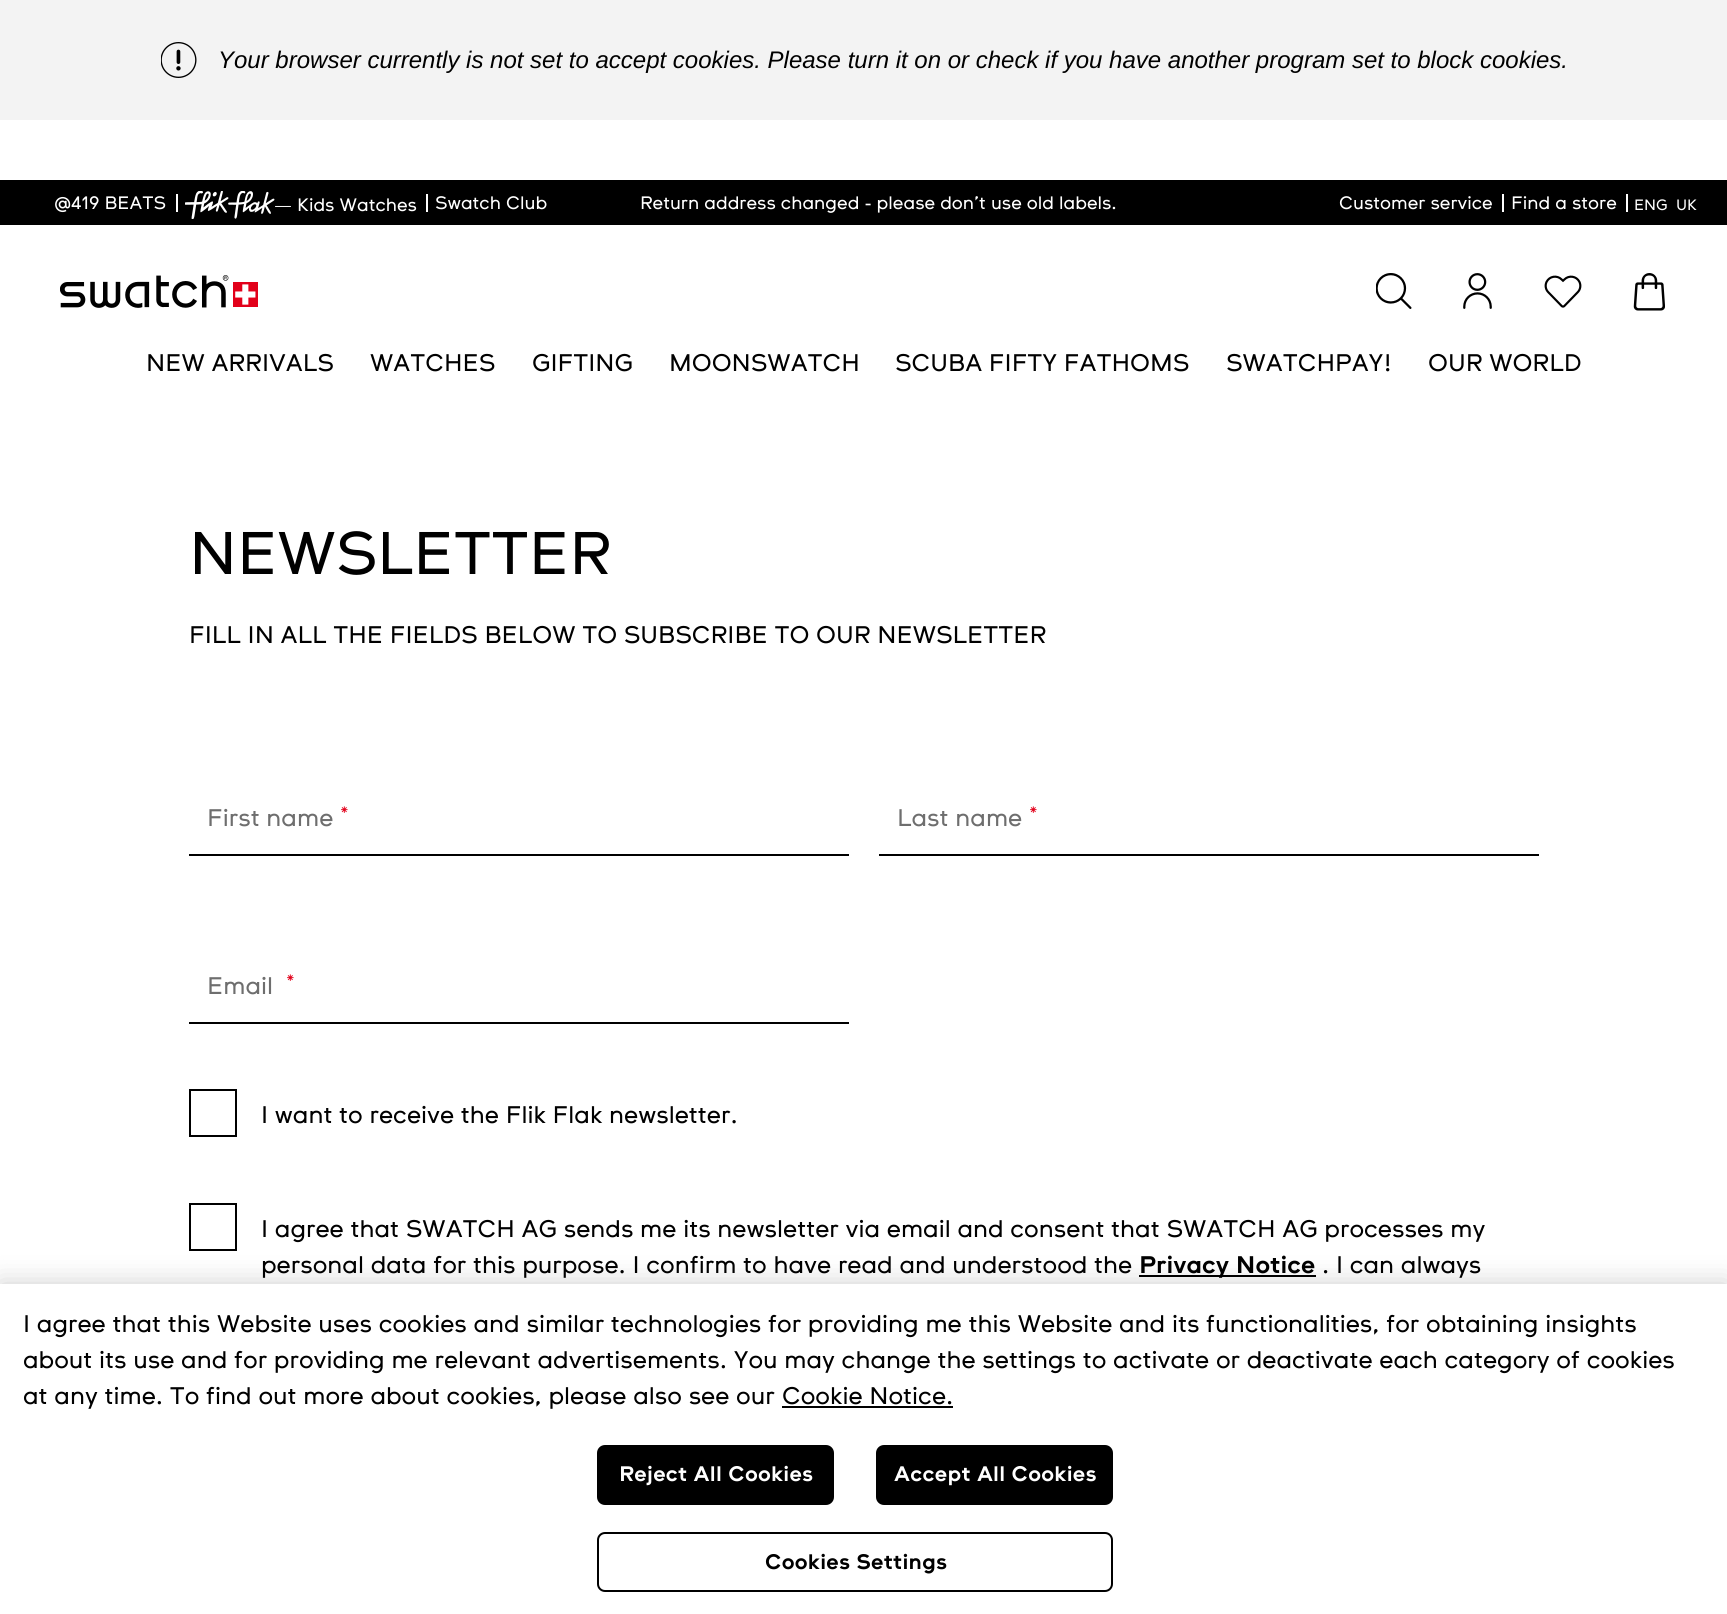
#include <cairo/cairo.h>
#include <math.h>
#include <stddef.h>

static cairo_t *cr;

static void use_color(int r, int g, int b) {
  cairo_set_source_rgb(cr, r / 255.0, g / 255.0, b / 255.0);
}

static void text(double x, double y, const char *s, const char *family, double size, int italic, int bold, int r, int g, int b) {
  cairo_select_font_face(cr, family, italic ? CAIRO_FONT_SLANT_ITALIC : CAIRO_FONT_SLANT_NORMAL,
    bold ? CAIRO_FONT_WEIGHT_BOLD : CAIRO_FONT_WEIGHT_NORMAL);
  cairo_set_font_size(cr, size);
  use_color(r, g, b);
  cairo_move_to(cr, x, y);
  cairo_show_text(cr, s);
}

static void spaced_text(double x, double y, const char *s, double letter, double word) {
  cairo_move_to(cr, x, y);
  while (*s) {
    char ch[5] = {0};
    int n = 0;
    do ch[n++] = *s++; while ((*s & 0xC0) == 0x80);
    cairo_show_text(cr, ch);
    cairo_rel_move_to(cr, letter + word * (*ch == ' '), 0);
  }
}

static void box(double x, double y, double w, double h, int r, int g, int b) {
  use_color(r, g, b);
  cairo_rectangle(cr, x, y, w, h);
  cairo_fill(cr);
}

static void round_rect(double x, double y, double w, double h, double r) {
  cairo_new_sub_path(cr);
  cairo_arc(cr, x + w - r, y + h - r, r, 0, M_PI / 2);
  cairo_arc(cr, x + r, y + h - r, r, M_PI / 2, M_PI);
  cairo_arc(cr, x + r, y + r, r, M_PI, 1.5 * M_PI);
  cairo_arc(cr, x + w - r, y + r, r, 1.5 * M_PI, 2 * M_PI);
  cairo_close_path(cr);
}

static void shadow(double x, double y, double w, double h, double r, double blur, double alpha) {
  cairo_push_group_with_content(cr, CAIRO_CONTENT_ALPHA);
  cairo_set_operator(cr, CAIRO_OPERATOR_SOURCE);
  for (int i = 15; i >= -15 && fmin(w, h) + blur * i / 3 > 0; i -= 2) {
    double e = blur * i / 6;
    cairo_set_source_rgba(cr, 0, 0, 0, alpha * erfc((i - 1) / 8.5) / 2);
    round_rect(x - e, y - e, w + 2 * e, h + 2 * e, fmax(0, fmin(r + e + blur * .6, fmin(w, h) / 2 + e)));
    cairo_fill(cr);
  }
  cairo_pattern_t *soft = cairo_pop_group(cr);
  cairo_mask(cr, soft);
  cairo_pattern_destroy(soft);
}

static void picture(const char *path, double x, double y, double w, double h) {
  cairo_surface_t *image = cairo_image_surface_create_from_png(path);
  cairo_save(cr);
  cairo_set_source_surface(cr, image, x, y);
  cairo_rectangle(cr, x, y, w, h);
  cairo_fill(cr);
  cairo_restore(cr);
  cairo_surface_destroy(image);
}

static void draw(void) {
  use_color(255, 255, 255);
  cairo_paint(cr);
  box(0, 0, 1727, 120, 243, 243, 243);
  picture("img_01.png", 161, 42, 36, 36);
  box(0, 180, 1727, 45, 0, 0, 0);
  box(176, 194, 2, 18, 255, 255, 255);
  box(426, 194, 2, 18, 255, 255, 255);
  box(1502, 194, 2, 18, 255, 255, 255);
  box(1626, 194, 2, 18, 255, 255, 255);
  picture("img_03.png", 60, 275, 198, 33);
  picture("img_04.png", 1376, 273, 36, 36);
  picture("img_05.png", 1463, 273, 29, 36);
  picture("img_06.png", 1544, 275, 38, 33);
  picture("img_07.png", 1633, 273, 32, 38);
  box(189, 854, 660, 2, 0, 0, 0);
  box(879, 854, 660, 2, 0, 0, 0);
  box(189, 1022, 660, 2, 0, 0, 0);
  cairo_rectangle(cr, 190, 1090, 46, 46);
  cairo_stroke(cr);
  cairo_rectangle(cr, 190, 1204, 46, 46);
  cairo_stroke(cr);
  box(1139, 1275, 177, 2, 0, 0, 0);
  use_color(0, 0, 0);
  shadow(0, 1284, 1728, 330, 0, 13.5, 0.2);
  box(0, 1284, 1727, 330, 255, 255, 255);
  box(782, 1406, 171, 2, 0, 0, 0);
  round_rect(598, 1446, 235, 58, 7);
  cairo_fill_preserve(cr);
  cairo_stroke(cr);
  round_rect(877, 1446, 235, 58, 7);
  cairo_fill_preserve(cr);
  cairo_stroke(cr);
  round_rect(598, 1533, 514, 58, 7);
  cairo_stroke(cr);
  text(218, 68, "Your browser currently is not set to accept cookies. Please turn it on or check if you have another program set to block cookies.", "Liberation Sans", 24, 1, 0, 0, 0, 0);
  text(54, 209, "@419 BEATS", "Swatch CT", 18, 0, 0, 255, 255, 255);
  text(274, 211, "— Kids Watches", "Swatch CT", 18, 0, 0, 255, 255, 255);
  picture("img_02.png", 185, 191, 90, 28);
  text(435, 209, "Swatch Club", "Swatch CT", 18, 0, 0, 255, 255, 255);
  text(640, 209, "Return address changed - please don’t use old labels.", "Swatch CT", 18, 0, 0, 255, 255, 255);
  text(1339, 209, "Customer service", "Swatch CT", 18, 0, 0, 255, 255, 255);
  text(1511, 209, "Find a store", "Swatch CT", 18, 0, 0, 255, 255, 255);
  text(1634, 210, "ENG", "Swatch CT", 15, 0, 0, 255, 255, 255);
  text(1676, 210, "UK", "Swatch CT", 15, 0, 0, 255, 255, 255);
  text(146, 371, "NEW ARRIVALS", "Swatch CT", 24, 0, 0, 0, 0, 0);
  text(370, 371, "WATCHES", "Swatch CT", 24, 0, 0, 0, 0, 0);
  text(532, 371, "GIFTING", "Swatch CT", 24, 0, 0, 0, 0, 0);
  text(669, 371, "MOONSWATCH", "Swatch CT", 24, 0, 0, 0, 0, 0);
  text(895, 371, "SCUBA FIFTY FATHOMS", "Swatch CT", 24, 0, 0, 0, 0, 0);
  text(1226, 371, "SWATCHPAY!", "Swatch CT", 24, 0, 0, 0, 0, 0);
  text(1428, 371, "OUR WORLD", "Swatch CT", 24, 0, 0, 0, 0, 0);
  text(189, 574, "NEWSLETTER", "Swatch CT", 60, 0, 0, 0, 0, 0);
  text(189, 643, "FILL IN ALL THE FIELDS BELOW TO SUBSCRIBE TO OUR NEWSLETTER", "Swatch CT", 24, 0, 0, 0, 0, 0);
  text(207, 826, "First name", "Swatch CT", 24, 0, 0, 110, 110, 110);
  text(340, 819, "*", "Swatch CT", 18, 0, 0, 226, 0, 26);
  text(897, 826, "Last name", "Swatch CT", 24, 0, 0, 110, 110, 110);
  text(1029, 819, "*", "Swatch CT", 18, 0, 0, 226, 0, 26);
  text(207, 994, "Email", "Swatch CT", 24, 0, 0, 110, 110, 110);
  text(286, 987, "*", "Swatch CT", 18, 0, 0, 226, 0, 26);
  text(261, 1123, "I want to receive the Flik Flak newsletter.", "Swatch CT", 24, 0, 0, 0, 0, 0);
  text(261, 1237, "I agree that SWATCH AG sends me its newsletter via email and consent that SWATCH AG processes my", "Swatch CT", 24, 0, 0, 0, 0, 0);
  text(261, 1273, "personal data for this purpose. I confirm to have read and understood the", "Swatch CT", 24, 0, 0, 0, 0, 0);
  text(1139, 1273, "Privacy Notice", "Swatch CT", 24, 0, 1, 0, 0, 0);
  text(1322, 1273, ". I can always", "Swatch CT", 24, 0, 0, 0, 0, 0);
  text(23, 1332, "I agree that this Website uses cookies and similar technologies for providing me this Website and its functionalities, for obtaining insights", "Swatch CT", 24, 0, 0, 0, 0, 0);
  text(23, 1368, "about its use and for providing me relevant advertisements. You may change the settings to activate or deactivate each category of cookies", "Swatch CT", 24, 0, 0, 0, 0, 0);
  text(23, 1404, "at any time. To find out more about cookies, please also see our", "Swatch CT", 24, 0, 0, 0, 0, 0);
  text(782, 1404, "Cookie Notice.", "Swatch CT", 24, 0, 0, 0, 0, 0);
  cairo_select_font_face(cr, "Swatch CT", CAIRO_FONT_SLANT_NORMAL, CAIRO_FONT_WEIGHT_BOLD);
  cairo_set_font_size(cr, 21);
  use_color(255, 255, 255);
  spaced_text(619, 1481, "Reject All Cookies", 0.25, 0);
  spaced_text(894, 1481, "Accept All Cookies", 0.25, 0);
  use_color(0, 0, 0);
  spaced_text(765, 1569, "Cookies Settings", 0.25, 0);
}

int main(void) {
  cairo_surface_t *surface = cairo_image_surface_create(CAIRO_FORMAT_RGB24, 1727, 1614);
  cr = cairo_create(surface);
  cairo_font_options_t *options = cairo_font_options_create();
  cairo_font_options_set_hint_metrics(options, CAIRO_HINT_METRICS_OFF);
  cairo_font_options_set_hint_style(options, CAIRO_HINT_STYLE_NONE);
  cairo_set_font_options(cr, options);
  cairo_set_miter_limit(cr, 4);
  draw();
  cairo_surface_write_to_png(surface, "out.png");
  cairo_font_options_destroy(options);
  cairo_destroy(cr);
  cairo_surface_destroy(surface);
  return 0;
}
